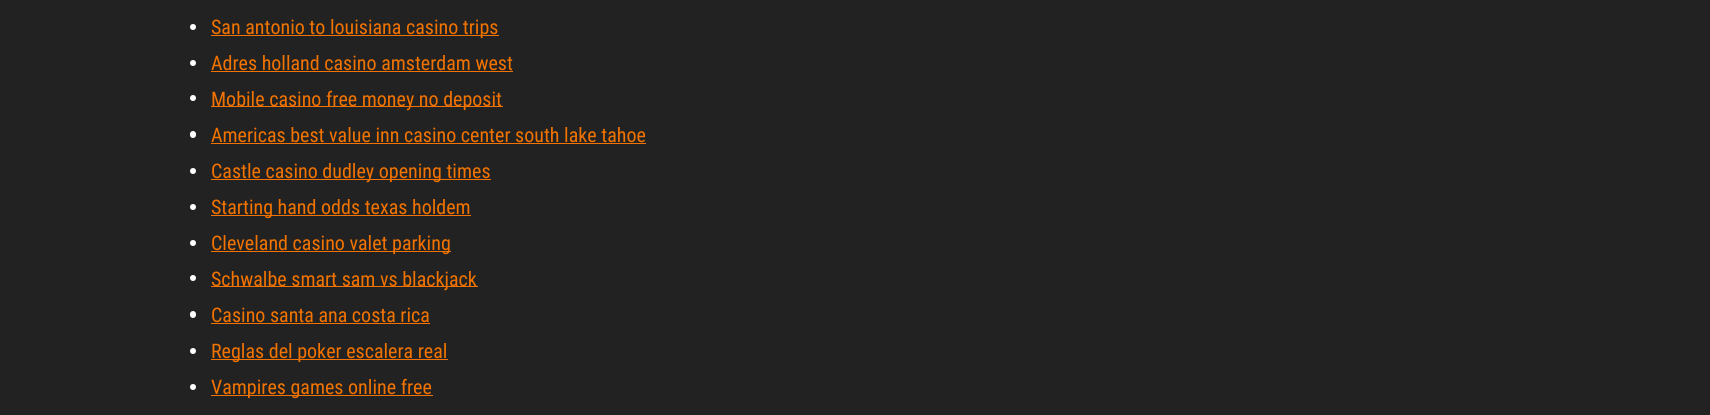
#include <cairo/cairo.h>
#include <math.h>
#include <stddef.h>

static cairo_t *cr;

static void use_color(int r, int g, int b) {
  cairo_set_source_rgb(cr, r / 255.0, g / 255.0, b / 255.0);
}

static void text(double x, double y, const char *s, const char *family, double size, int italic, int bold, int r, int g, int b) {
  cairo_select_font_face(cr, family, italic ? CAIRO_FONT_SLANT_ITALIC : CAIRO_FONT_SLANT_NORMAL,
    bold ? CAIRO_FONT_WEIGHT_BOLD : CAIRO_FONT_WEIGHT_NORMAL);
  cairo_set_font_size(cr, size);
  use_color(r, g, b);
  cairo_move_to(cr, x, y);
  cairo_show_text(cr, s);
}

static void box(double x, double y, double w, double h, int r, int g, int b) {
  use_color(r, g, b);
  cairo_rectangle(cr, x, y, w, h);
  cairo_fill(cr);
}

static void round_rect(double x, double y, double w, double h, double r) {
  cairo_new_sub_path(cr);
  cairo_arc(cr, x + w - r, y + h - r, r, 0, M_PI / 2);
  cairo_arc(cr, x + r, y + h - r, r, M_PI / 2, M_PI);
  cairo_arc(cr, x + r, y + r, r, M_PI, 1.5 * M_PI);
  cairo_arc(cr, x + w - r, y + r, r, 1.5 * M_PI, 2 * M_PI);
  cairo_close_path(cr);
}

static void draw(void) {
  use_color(34, 34, 34);
  cairo_paint(cr);
  use_color(255, 255, 255);
  cairo_arc(cr, 193, 27, 3, 0, 2 * M_PI);
  cairo_fill(cr);
  box(211, 35, 288, 1, 242, 115, 0);
  use_color(255, 255, 255);
  cairo_arc(cr, 193, 63, 3, 0, 2 * M_PI);
  cairo_fill(cr);
  box(211, 71, 302, 1, 242, 115, 0);
  use_color(255, 255, 255);
  cairo_arc(cr, 193, 98, 3, 0, 2 * M_PI);
  cairo_fill(cr);
  box(211, 106, 292, 1, 242, 115, 0);
  use_color(255, 255, 255);
  round_rect(190, 131, 6, 7, 3);
  cairo_fill(cr);
  box(211, 143, 435, 1, 242, 115, 0);
  use_color(255, 255, 255);
  cairo_arc(cr, 193, 171, 3, 0, 2 * M_PI);
  cairo_fill(cr);
  box(211, 179, 280, 1, 242, 115, 0);
  use_color(255, 255, 255);
  cairo_arc(cr, 193, 207, 3, 0, 2 * M_PI);
  cairo_fill(cr);
  box(211, 215, 260, 1, 242, 115, 0);
  use_color(255, 255, 255);
  cairo_arc(cr, 193, 243, 3, 0, 2 * M_PI);
  cairo_fill(cr);
  box(211, 251, 240, 1, 242, 115, 0);
  use_color(255, 255, 255);
  cairo_arc(cr, 193, 278, 3, 0, 2 * M_PI);
  cairo_fill(cr);
  box(211, 286, 267, 1, 242, 115, 0);
  use_color(255, 255, 255);
  round_rect(190, 311, 6, 7, 3);
  cairo_fill(cr);
  box(211, 323, 219, 1, 242, 115, 0);
  use_color(255, 255, 255);
  cairo_arc(cr, 193, 351, 3, 0, 2 * M_PI);
  cairo_fill(cr);
  box(211, 359, 237, 1, 242, 115, 0);
  use_color(255, 255, 255);
  cairo_arc(cr, 193, 387, 3, 0, 2 * M_PI);
  cairo_fill(cr);
  box(211, 395, 222, 1, 242, 115, 0);
  text(211, 34, "San antonio to louisiana casino trips", "Roboto Condensed", 20, 0, 0, 242, 115, 0);
  text(211, 70, "Adres holland casino amsterdam west", "Roboto Condensed", 20, 0, 0, 242, 115, 0);
  text(211, 106, "Mobile casino free money no deposit", "Roboto Condensed", 20, 0, 0, 242, 115, 0);
  text(211, 142, "Americas best value inn casino center south lake tahoe", "Roboto Condensed", 20, 0, 0, 242, 115, 0);
  text(211, 178, "Castle casino dudley opening times", "Roboto Condensed", 20, 0, 0, 242, 115, 0);
  text(211, 214, "Starting hand odds texas holdem", "Roboto Condensed", 20, 0, 0, 242, 115, 0);
  text(211, 250, "Cleveland casino valet parking", "Roboto Condensed", 20, 0, 0, 242, 115, 0);
  text(211, 286, "Schwalbe smart sam vs blackjack", "Roboto Condensed", 20, 0, 0, 242, 115, 0);
  text(211, 322, "Casino santa ana costa rica", "Roboto Condensed", 20, 0, 0, 242, 115, 0);
  text(211, 358, "Reglas del poker escalera real", "Roboto Condensed", 20, 0, 0, 242, 115, 0);
  text(211, 394, "Vampires games online free", "Roboto Condensed", 20, 0, 0, 242, 115, 0);
}

int main(void) {
  cairo_surface_t *surface = cairo_image_surface_create(CAIRO_FORMAT_RGB24, 1710, 415);
  cr = cairo_create(surface);
  cairo_font_options_t *options = cairo_font_options_create();
  cairo_font_options_set_hint_metrics(options, CAIRO_HINT_METRICS_OFF);
  cairo_font_options_set_hint_style(options, CAIRO_HINT_STYLE_NONE);
  cairo_set_font_options(cr, options);
  cairo_set_miter_limit(cr, 4);
  draw();
  cairo_surface_write_to_png(surface, "out.png");
  cairo_font_options_destroy(options);
  cairo_destroy(cr);
  cairo_surface_destroy(surface);
  return 0;
}
